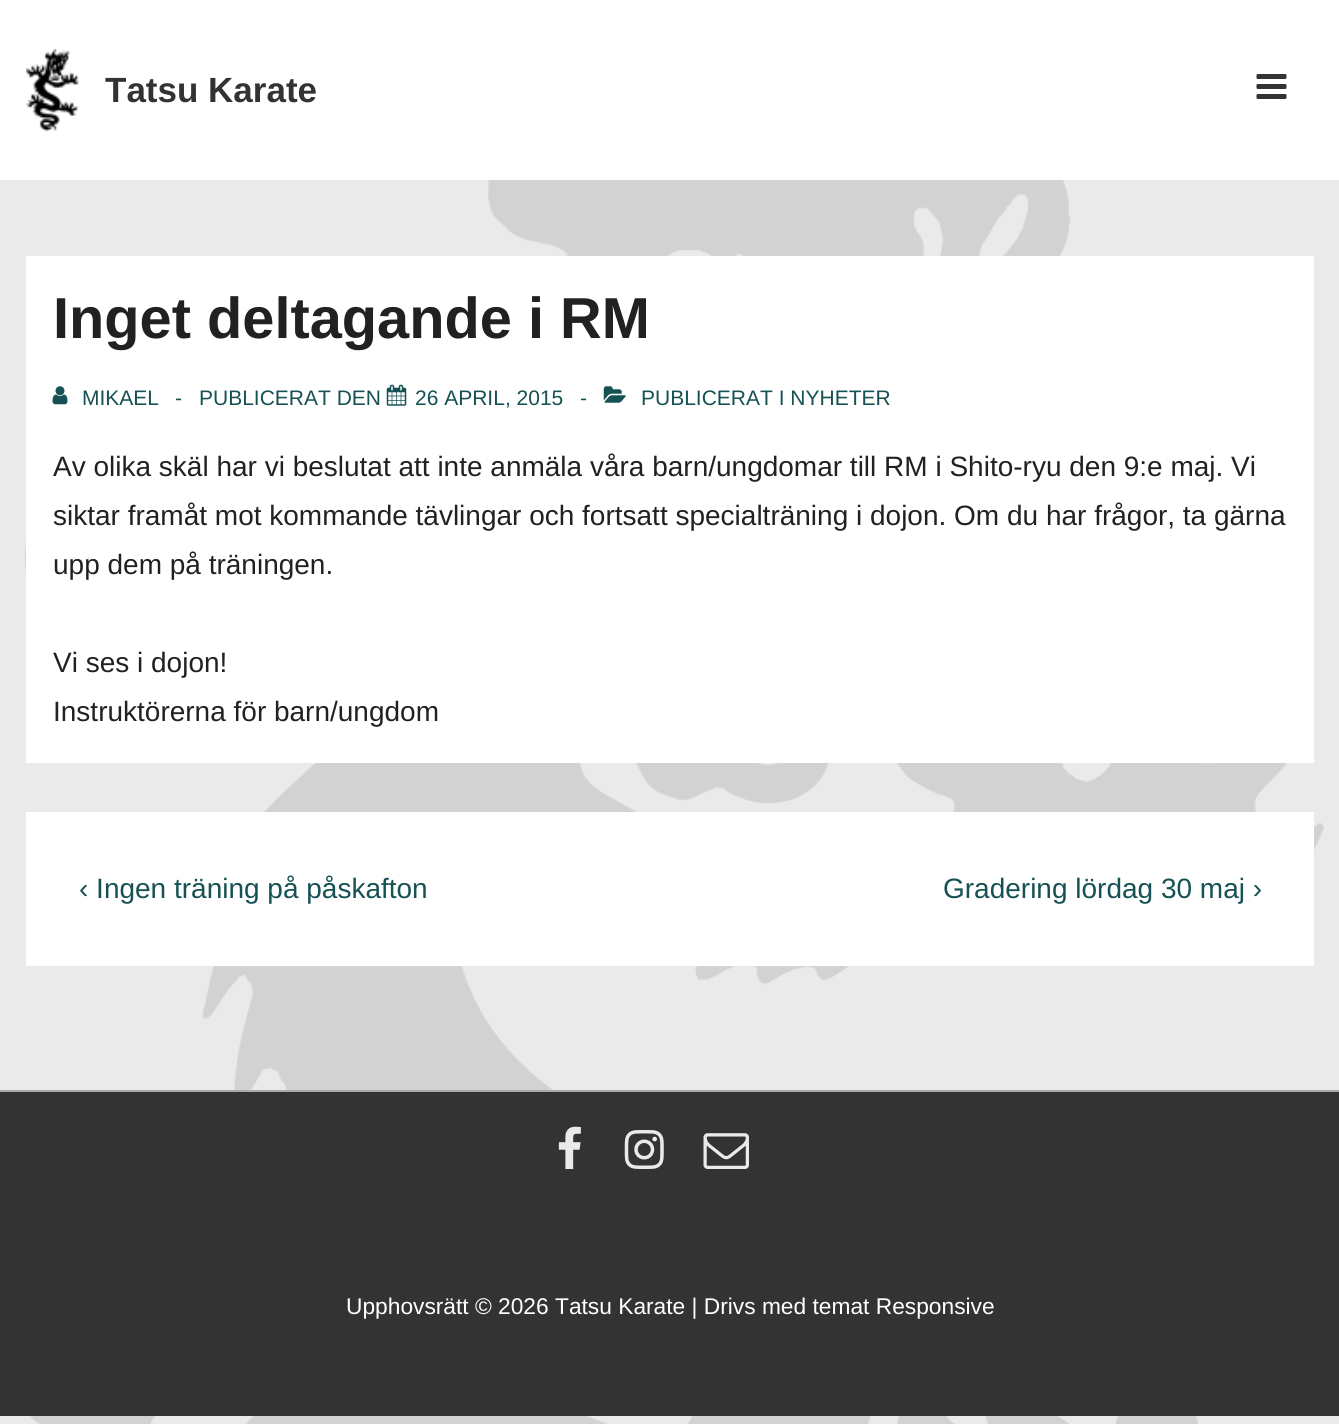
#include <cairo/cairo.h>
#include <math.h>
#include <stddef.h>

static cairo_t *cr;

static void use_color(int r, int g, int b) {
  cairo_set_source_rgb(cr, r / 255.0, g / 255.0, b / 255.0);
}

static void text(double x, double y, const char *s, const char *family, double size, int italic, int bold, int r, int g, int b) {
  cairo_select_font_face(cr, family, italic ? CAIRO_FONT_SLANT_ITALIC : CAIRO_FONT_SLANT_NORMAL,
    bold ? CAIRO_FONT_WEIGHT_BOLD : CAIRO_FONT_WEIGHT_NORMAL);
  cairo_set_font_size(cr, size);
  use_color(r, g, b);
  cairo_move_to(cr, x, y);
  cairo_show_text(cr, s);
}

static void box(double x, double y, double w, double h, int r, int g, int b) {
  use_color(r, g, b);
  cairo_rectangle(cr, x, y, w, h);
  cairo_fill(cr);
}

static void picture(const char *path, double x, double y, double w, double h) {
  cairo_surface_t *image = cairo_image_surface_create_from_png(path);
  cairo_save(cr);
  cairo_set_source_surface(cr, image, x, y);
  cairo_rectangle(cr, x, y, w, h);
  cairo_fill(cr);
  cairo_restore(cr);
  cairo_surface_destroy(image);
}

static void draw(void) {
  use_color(234, 234, 234);
  cairo_paint(cr);
  picture("img_01.png", 24, 180, 1300, 1244);
  box(0, 0, 1339, 180, 255, 255, 255);
  picture("img_02.png", 26, 49, 53, 83);
  picture("img_03.png", 1256, 74, 31, 25);
  box(26, 256, 1288, 507, 255, 255, 255);
  picture("img_04.png", 52, 386, 16, 19);
  picture("img_05.png", 386, 384, 21, 22);
  picture("img_06.png", 603, 386, 23, 17);
  box(26, 812, 1288, 154, 255, 255, 255);
  box(0, 1092, 1339, 324, 51, 51, 51);
  box(0, 1090, 1339, 2, 170, 170, 170);
  picture("img_07.png", 558, 1126, 23, 43);
  picture("img_08.png", 624, 1130, 40, 39);
  picture("img_09.png", 703, 1133, 46, 36);
  text(105, 102, "Tatsu Karate", "Liberation Sans", 35, 0, 1, 51, 51, 51);
  text(53, 338, "Inget deltagande i RM", "Liberation Sans", 57.75, 0, 1, 33, 33, 33);
  text(82, 405, "MIKAEL", "Liberation Sans", 21, 0, 0, 22, 81, 83);
  text(175, 405, "-", "Liberation Sans", 21, 0, 0, 22, 81, 83);
  text(199, 405, "PUBLICERAT DEN", "Liberation Sans", 21, 0, 0, 22, 81, 83);
  text(415, 405, "26 APRIL, 2015", "Liberation Sans", 21, 0, 0, 22, 81, 83);
  text(580, 405, "-", "Liberation Sans", 21, 0, 0, 22, 81, 83);
  text(641, 405, "PUBLICERAT I NYHETER", "Liberation Sans", 21, 0, 0, 22, 81, 83);
  text(53, 476, "Av olika skäl har vi beslutat att inte anmäla våra barn/ungdomar till RM i Shito-ryu den 9:e maj. Vi", "Liberation Sans", 28, 0, 0, 33, 33, 33);
  text(53, 525, "siktar framåt mot kommande tävlingar och fortsatt specialträning i dojon. Om du har frågor, ta gärna", "Liberation Sans", 28, 0, 0, 33, 33, 33);
  text(53, 574, "upp dem på träningen.", "Liberation Sans", 28, 0, 0, 33, 33, 33);
  text(53, 672, "Vi ses i dojon!", "Liberation Sans", 28, 0, 0, 33, 33, 33);
  text(53, 721, "Instruktörerna för barn/ungdom", "Liberation Sans", 28, 0, 0, 33, 33, 33);
  text(79, 898, "‹ Ingen träning på påskafton", "Liberation Sans", 28, 0, 0, 22, 81, 83);
  text(943, 898, "Gradering lördag 30 maj ›", "Liberation Sans", 28, 0, 0, 22, 81, 83);
  text(346, 1314, "Upphovsrätt © 2026 Tatsu Karate | Drivs med temat Responsive", "Liberation Sans", 22.75, 0, 0, 255, 255, 255);
}

int main(void) {
  cairo_surface_t *surface = cairo_image_surface_create(CAIRO_FORMAT_RGB24, 1339, 1424);
  cr = cairo_create(surface);
  cairo_font_options_t *options = cairo_font_options_create();
  cairo_font_options_set_hint_metrics(options, CAIRO_HINT_METRICS_OFF);
  cairo_font_options_set_hint_style(options, CAIRO_HINT_STYLE_NONE);
  cairo_set_font_options(cr, options);
  cairo_set_miter_limit(cr, 4);
  draw();
  cairo_surface_write_to_png(surface, "out.png");
  cairo_font_options_destroy(options);
  cairo_destroy(cr);
  cairo_surface_destroy(surface);
  return 0;
}
